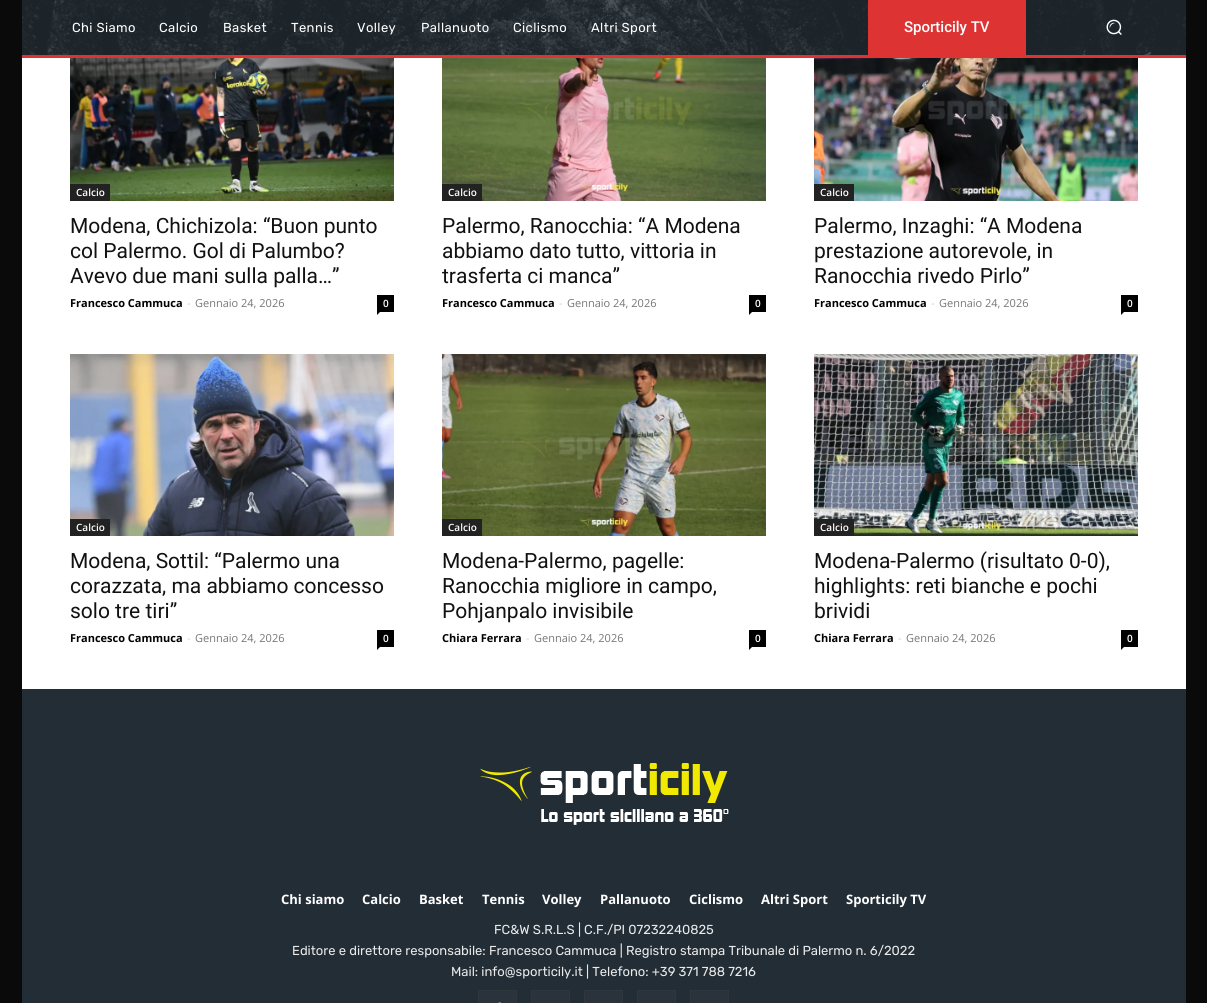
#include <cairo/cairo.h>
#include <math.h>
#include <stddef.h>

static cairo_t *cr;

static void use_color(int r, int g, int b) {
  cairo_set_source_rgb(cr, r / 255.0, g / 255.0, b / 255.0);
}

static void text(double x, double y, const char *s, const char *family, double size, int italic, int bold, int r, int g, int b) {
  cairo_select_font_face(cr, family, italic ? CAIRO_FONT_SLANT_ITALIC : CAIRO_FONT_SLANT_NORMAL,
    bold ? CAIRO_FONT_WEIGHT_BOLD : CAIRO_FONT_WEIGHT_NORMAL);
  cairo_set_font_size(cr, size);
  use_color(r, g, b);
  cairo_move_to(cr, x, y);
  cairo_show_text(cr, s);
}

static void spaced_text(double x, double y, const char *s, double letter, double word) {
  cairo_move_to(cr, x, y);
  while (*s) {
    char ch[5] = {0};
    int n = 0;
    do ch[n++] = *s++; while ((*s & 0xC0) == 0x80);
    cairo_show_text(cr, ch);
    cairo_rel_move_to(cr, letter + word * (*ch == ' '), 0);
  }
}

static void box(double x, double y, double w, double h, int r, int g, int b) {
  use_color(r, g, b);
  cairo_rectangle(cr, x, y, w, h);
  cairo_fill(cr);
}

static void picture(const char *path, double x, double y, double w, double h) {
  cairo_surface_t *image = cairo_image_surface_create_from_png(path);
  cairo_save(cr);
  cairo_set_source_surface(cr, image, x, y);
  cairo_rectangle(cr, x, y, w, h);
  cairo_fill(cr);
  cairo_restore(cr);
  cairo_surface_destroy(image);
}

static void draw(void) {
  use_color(10, 10, 10);
  cairo_paint(cr);
  box(22, 0, 1164, 55, 35, 45, 53);
  picture("img_01.png", 22, 0, 1164, 55);
  box(868, 0, 158, 55, 221, 51, 51);
  picture("img_02.png", 1106, 19, 16, 16);
  box(22, 55, 1164, 3, 221, 51, 51);
  box(22, 58, 1164, 631, 255, 255, 255);
  picture("img_03.png", 70, 58, 324, 143);
  box(70, 184, 40, 17, 34, 34, 34);
  box(377, 295, 17, 17, 0, 0, 0);
  cairo_new_path(cr);
  cairo_move_to(cr, 377, 312);
  cairo_line_to(cr, 380, 312);
  cairo_line_to(cr, 377, 315);
  cairo_close_path(cr);
  cairo_fill(cr);
  picture("img_04.png", 442, 58, 324, 143);
  box(442, 184, 40, 17, 34, 34, 34);
  box(749, 295, 17, 17, 0, 0, 0);
  cairo_new_path(cr);
  cairo_move_to(cr, 749, 312);
  cairo_line_to(cr, 752, 312);
  cairo_line_to(cr, 749, 315);
  cairo_close_path(cr);
  cairo_fill(cr);
  picture("img_05.png", 814, 58, 324, 143);
  box(814, 184, 40, 17, 34, 34, 34);
  box(1121, 295, 17, 17, 0, 0, 0);
  cairo_new_path(cr);
  cairo_move_to(cr, 1121, 312);
  cairo_line_to(cr, 1124, 312);
  cairo_line_to(cr, 1121, 315);
  cairo_close_path(cr);
  cairo_fill(cr);
  picture("img_06.png", 70, 354, 324, 182);
  box(70, 519, 40, 17, 34, 34, 34);
  box(377, 630, 17, 17, 0, 0, 0);
  cairo_new_path(cr);
  cairo_move_to(cr, 377, 647);
  cairo_line_to(cr, 380, 647);
  cairo_line_to(cr, 377, 650);
  cairo_close_path(cr);
  cairo_fill(cr);
  picture("img_07.png", 442, 354, 324, 182);
  box(442, 519, 40, 17, 34, 34, 34);
  box(749, 630, 17, 17, 0, 0, 0);
  cairo_new_path(cr);
  cairo_move_to(cr, 749, 647);
  cairo_line_to(cr, 752, 647);
  cairo_line_to(cr, 749, 650);
  cairo_close_path(cr);
  cairo_fill(cr);
  picture("img_08.png", 814, 354, 324, 182);
  box(814, 519, 40, 17, 34, 34, 34);
  box(1121, 630, 17, 17, 0, 0, 0);
  cairo_new_path(cr);
  cairo_move_to(cr, 1121, 647);
  cairo_line_to(cr, 1124, 647);
  cairo_line_to(cr, 1121, 650);
  cairo_close_path(cr);
  cairo_fill(cr);
  box(22, 689, 1164, 314, 35, 45, 53);
  picture("img_09.png", 480, 763, 249, 62);
  use_color(42, 51, 59);
  cairo_rectangle(cr, 478.5, 990.5, 38, 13);
  cairo_fill_preserve(cr);
  use_color(47, 54, 60);
  cairo_set_line_width(cr, 1);
  cairo_stroke(cr);
  picture("img_10.png", 498, 1002, 3, 1);
  use_color(42, 51, 59);
  cairo_rectangle(cr, 531.5, 990.5, 38, 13);
  cairo_fill_preserve(cr);
  use_color(47, 54, 60);
  cairo_stroke(cr);
  use_color(42, 51, 59);
  cairo_rectangle(cr, 584.5, 990.5, 38, 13);
  cairo_fill_preserve(cr);
  use_color(47, 54, 60);
  cairo_stroke(cr);
  use_color(42, 51, 59);
  cairo_rectangle(cr, 637.5, 990.5, 38, 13);
  cairo_fill_preserve(cr);
  use_color(47, 54, 60);
  cairo_stroke(cr);
  use_color(42, 51, 59);
  cairo_rectangle(cr, 690.5, 990.5, 38, 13);
  cairo_fill_preserve(cr);
  use_color(47, 54, 60);
  cairo_stroke(cr);
  cairo_select_font_face(cr, "Rubik", CAIRO_FONT_SLANT_NORMAL, CAIRO_FONT_WEIGHT_NORMAL);
  cairo_set_font_size(cr, 13);
  use_color(255, 255, 255);
  spaced_text(72, 32, "Chi Siamo", 0.4, 0);
  spaced_text(159, 32, "Calcio", 0.4, 0);
  spaced_text(223, 32, "Basket", 0.4, 0);
  spaced_text(291, 32, "Tennis", 0.4, 0);
  spaced_text(357, 32, "Volley", 0.4, 0);
  spaced_text(421, 32, "Pallanuoto", 0.4, 0);
  spaced_text(513, 32, "Ciclismo", 0.4, 0);
  spaced_text(591, 32, "Altri Sport", 0.4, 0);
  text(904, 32, "Sporticily TV", "Roboto Medium", 15, 0, 0, 255, 255, 255);
  text(76, 196, "Calcio", "Open Sans SemiBold", 10, 0, 0, 255, 255, 255);
  text(70, 233, "Modena, Chichizola: “Buon punto", "Roboto", 21, 0, 0, 17, 17, 17);
  text(70, 258, "col Palermo. Gol di Palumbo?", "Roboto", 21, 0, 0, 17, 17, 17);
  text(70, 283, "Avevo due mani sulla palla…”", "Roboto", 21, 0, 0, 17, 17, 17);
  text(70, 307, "Francesco Cammuca", "Open Sans", 11, 0, 1, 0, 0, 0);
  text(187, 307, "-", "Open Sans", 11, 0, 0, 204, 204, 204);
  text(195, 307, "Gennaio 24, 2026", "Open Sans", 11, 0, 0, 118, 118, 118);
  text(383, 307, "0", "Open Sans SemiBold", 10, 0, 0, 255, 255, 255);
  text(448, 196, "Calcio", "Open Sans SemiBold", 10, 0, 0, 255, 255, 255);
  text(442, 233, "Palermo, Ranocchia: “A Modena", "Roboto", 21, 0, 0, 17, 17, 17);
  text(442, 258, "abbiamo dato tutto, vittoria in", "Roboto", 21, 0, 0, 17, 17, 17);
  text(442, 283, "trasferta ci manca”", "Roboto", 21, 0, 0, 17, 17, 17);
  text(442, 307, "Francesco Cammuca", "Open Sans", 11, 0, 1, 0, 0, 0);
  text(559, 307, "-", "Open Sans", 11, 0, 0, 204, 204, 204);
  text(567, 307, "Gennaio 24, 2026", "Open Sans", 11, 0, 0, 118, 118, 118);
  text(755, 307, "0", "Open Sans SemiBold", 10, 0, 0, 255, 255, 255);
  text(820, 196, "Calcio", "Open Sans SemiBold", 10, 0, 0, 255, 255, 255);
  text(814, 233, "Palermo, Inzaghi: “A Modena", "Roboto", 21, 0, 0, 17, 17, 17);
  text(814, 258, "prestazione autorevole, in", "Roboto", 21, 0, 0, 17, 17, 17);
  text(814, 283, "Ranocchia rivedo Pirlo”", "Roboto", 21, 0, 0, 17, 17, 17);
  text(814, 307, "Francesco Cammuca", "Open Sans", 11, 0, 1, 0, 0, 0);
  text(931, 307, "-", "Open Sans", 11, 0, 0, 204, 204, 204);
  text(939, 307, "Gennaio 24, 2026", "Open Sans", 11, 0, 0, 118, 118, 118);
  text(1127, 307, "0", "Open Sans SemiBold", 10, 0, 0, 255, 255, 255);
  text(76, 531, "Calcio", "Open Sans SemiBold", 10, 0, 0, 255, 255, 255);
  text(70, 568, "Modena, Sottil: “Palermo una", "Roboto", 21, 0, 0, 17, 17, 17);
  text(70, 593, "corazzata, ma abbiamo concesso", "Roboto", 21, 0, 0, 17, 17, 17);
  text(70, 618, "solo tre tiri”", "Roboto", 21, 0, 0, 17, 17, 17);
  text(70, 642, "Francesco Cammuca", "Open Sans", 11, 0, 1, 0, 0, 0);
  text(187, 642, "-", "Open Sans", 11, 0, 0, 204, 204, 204);
  text(195, 642, "Gennaio 24, 2026", "Open Sans", 11, 0, 0, 118, 118, 118);
  text(383, 642, "0", "Open Sans SemiBold", 10, 0, 0, 255, 255, 255);
  text(448, 531, "Calcio", "Open Sans SemiBold", 10, 0, 0, 255, 255, 255);
  text(442, 568, "Modena-Palermo, pagelle:", "Roboto", 21, 0, 0, 17, 17, 17);
  text(442, 593, "Ranocchia migliore in campo,", "Roboto", 21, 0, 0, 17, 17, 17);
  text(442, 618, "Pohjanpalo invisibile", "Roboto", 21, 0, 0, 17, 17, 17);
  text(442, 642, "Chiara Ferrara", "Open Sans", 11, 0, 1, 0, 0, 0);
  text(526, 642, "-", "Open Sans", 11, 0, 0, 204, 204, 204);
  text(534, 642, "Gennaio 24, 2026", "Open Sans", 11, 0, 0, 118, 118, 118);
  text(755, 642, "0", "Open Sans SemiBold", 10, 0, 0, 255, 255, 255);
  text(820, 531, "Calcio", "Open Sans SemiBold", 10, 0, 0, 255, 255, 255);
  text(814, 568, "Modena-Palermo (risultato 0-0),", "Roboto", 21, 0, 0, 17, 17, 17);
  text(814, 593, "highlights: reti bianche e pochi", "Roboto", 21, 0, 0, 17, 17, 17);
  text(814, 618, "brividi", "Roboto", 21, 0, 0, 17, 17, 17);
  text(814, 642, "Chiara Ferrara", "Open Sans", 11, 0, 1, 0, 0, 0);
  text(898, 642, "-", "Open Sans", 11, 0, 0, 204, 204, 204);
  text(906, 642, "Gennaio 24, 2026", "Open Sans", 11, 0, 0, 118, 118, 118);
  text(1127, 642, "0", "Open Sans SemiBold", 10, 0, 0, 255, 255, 255);
  text(281, 904, "Chi siamo", "Open Sans", 13, 0, 1, 255, 255, 255);
  text(362, 904, "Calcio", "Open Sans", 13, 0, 1, 255, 255, 255);
  text(419, 904, "Basket", "Open Sans", 13, 0, 1, 255, 255, 255);
  text(482, 904, "Tennis", "Open Sans", 13, 0, 1, 255, 255, 255);
  text(542, 904, "Volley", "Open Sans", 13, 0, 1, 255, 255, 255);
  text(600, 904, "Pallanuoto", "Open Sans", 13, 0, 1, 255, 255, 255);
  text(689, 904, "Ciclismo", "Open Sans", 13, 0, 1, 255, 255, 255);
  text(761, 904, "Altri Sport", "Open Sans", 13, 0, 1, 255, 255, 255);
  text(846, 904, "Sporticily TV", "Open Sans", 13, 0, 1, 255, 255, 255);
  text(494, 934, "FC&W S.R.L.S | C.F./PI 07232240825", "Rubik", 13, 0, 0, 234, 234, 234);
  text(292, 955, "Editore e direttore responsabile: Francesco Cammuca | Registro stampa Tribunale di Palermo n. 6/2022", "Rubik", 13, 0, 0, 234, 234, 234);
  text(451, 976, "Mail: info@sporticily.it | Telefono: +39 371 788 7216", "Rubik", 13, 0, 0, 234, 234, 234);
}

int main(void) {
  cairo_surface_t *surface = cairo_image_surface_create(CAIRO_FORMAT_RGB24, 1207, 1003);
  cr = cairo_create(surface);
  cairo_font_options_t *options = cairo_font_options_create();
  cairo_font_options_set_hint_metrics(options, CAIRO_HINT_METRICS_OFF);
  cairo_font_options_set_hint_style(options, CAIRO_HINT_STYLE_NONE);
  cairo_set_font_options(cr, options);
  cairo_set_miter_limit(cr, 4);
  draw();
  cairo_surface_write_to_png(surface, "out.png");
  cairo_font_options_destroy(options);
  cairo_destroy(cr);
  cairo_surface_destroy(surface);
  return 0;
}
